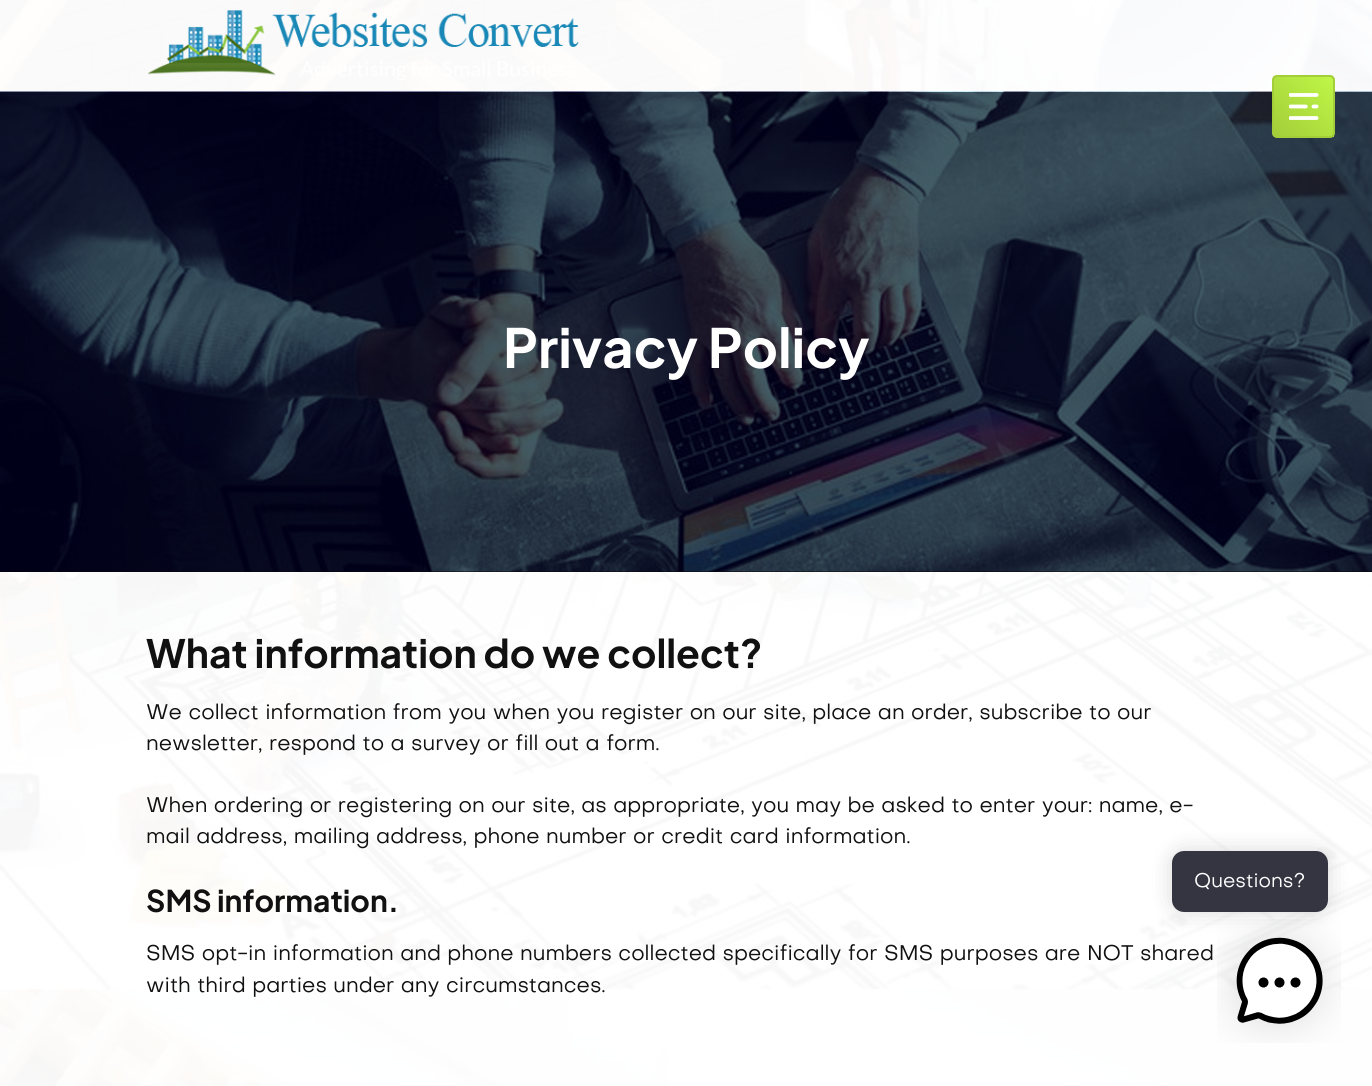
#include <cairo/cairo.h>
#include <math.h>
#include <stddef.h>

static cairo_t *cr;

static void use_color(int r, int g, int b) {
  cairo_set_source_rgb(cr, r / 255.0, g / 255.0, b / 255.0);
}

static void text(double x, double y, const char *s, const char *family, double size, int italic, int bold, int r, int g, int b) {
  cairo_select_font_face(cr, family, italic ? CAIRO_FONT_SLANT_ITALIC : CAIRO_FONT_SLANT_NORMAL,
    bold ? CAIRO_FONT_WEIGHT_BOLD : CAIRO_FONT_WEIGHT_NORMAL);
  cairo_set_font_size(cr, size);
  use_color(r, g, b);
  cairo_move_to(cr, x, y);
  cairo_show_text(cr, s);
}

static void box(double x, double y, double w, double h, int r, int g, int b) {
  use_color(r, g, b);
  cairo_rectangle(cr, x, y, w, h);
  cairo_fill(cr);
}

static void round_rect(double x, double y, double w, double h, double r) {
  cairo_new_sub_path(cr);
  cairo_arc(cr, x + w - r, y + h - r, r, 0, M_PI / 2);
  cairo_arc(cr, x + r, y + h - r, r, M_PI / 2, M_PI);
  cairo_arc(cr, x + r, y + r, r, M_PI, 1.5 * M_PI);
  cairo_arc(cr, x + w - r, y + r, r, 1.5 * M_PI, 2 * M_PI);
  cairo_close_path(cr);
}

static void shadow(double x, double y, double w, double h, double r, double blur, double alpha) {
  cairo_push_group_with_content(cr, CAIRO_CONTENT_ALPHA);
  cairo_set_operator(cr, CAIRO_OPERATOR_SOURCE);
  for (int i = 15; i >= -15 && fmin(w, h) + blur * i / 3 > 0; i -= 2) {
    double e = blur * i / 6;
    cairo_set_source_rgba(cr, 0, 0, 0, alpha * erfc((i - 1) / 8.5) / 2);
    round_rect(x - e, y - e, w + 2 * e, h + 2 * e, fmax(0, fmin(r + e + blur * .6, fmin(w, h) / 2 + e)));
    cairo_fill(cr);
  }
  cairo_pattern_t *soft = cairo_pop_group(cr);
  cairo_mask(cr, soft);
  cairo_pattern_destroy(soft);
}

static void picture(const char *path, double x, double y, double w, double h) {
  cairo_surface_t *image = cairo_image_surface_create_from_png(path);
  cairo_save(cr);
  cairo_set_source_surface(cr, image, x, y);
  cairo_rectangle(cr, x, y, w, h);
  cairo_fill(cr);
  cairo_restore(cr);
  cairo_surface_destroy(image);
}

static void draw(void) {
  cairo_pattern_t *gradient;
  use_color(255, 255, 255);
  cairo_paint(cr);
  picture("img_01.png", 0, 0, 1372, 1086);
  picture("img_02.png", 148, 10, 431, 70);
  cairo_save(cr);
  round_rect(1272, 75, 63, 63, 5);
  cairo_clip(cr);
  gradient = cairo_pattern_create_linear(1214, 77, 1274, 16);
  cairo_pattern_add_color_stop_rgba(gradient, 0, 0.639, 0.804, 0.224, 1);
  cairo_pattern_add_color_stop_rgba(gradient, 1, 0.749, 0.969, 0.278, 1);
  cairo_set_source(cr, gradient);
  cairo_pattern_destroy(gradient);
  cairo_rectangle(cr, 1272, 76, 2, 1);
  cairo_fill(cr);
  cairo_restore(cr);
  box(0, 571, 1372, 1, 17, 17, 17);
  picture("img_04.png", 0, 91, 1372, 481);
  cairo_set_source_rgba(cr, 0, 0, 0, 0.6);
  cairo_rectangle(cr, 0, 92, 1372, 480);
  cairo_fill(cr);
  gradient = cairo_pattern_create_linear(1274, 137, 1334, 77);
  cairo_pattern_add_color_stop_rgba(gradient, 0, 0.639, 0.804, 0.224, 1);
  cairo_pattern_add_color_stop_rgba(gradient, 1, 0.749, 0.969, 0.278, 1);
  cairo_set_source(cr, gradient);
  cairo_pattern_destroy(gradient);
  cairo_rectangle(cr, 1274, 77, 60, 60);
  cairo_fill(cr);
  round_rect(1273, 76, 61, 61, 4);
  use_color(163, 205, 57);
  cairo_stroke(cr);
  picture("img_03.png", 1289, 93, 30, 27);
  picture("img_05.png", 1217, 919, 124, 124);
  use_color(0, 0, 0);
  shadow(1172, 851, 156, 61, 12, 11, 0.15);
  use_color(52, 53, 65);
  round_rect(1172, 851, 156, 61, 12);
  cairo_fill(cr);
  text(503, 368, "Privacy Policy", "Plus Jakarta Sans", 54, 0, 1, 255, 255, 255);
  text(146, 668, "What information do we collect?", "Plus Jakarta Sans", 39, 0, 1, 17, 17, 17);
  text(146, 719, "We collect information from you when you register on our site, place an order, subscribe to our", "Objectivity", 21, 0, 0, 17, 17, 17);
  text(146, 750, "newsletter, respond to a survey or fill out a form.", "Objectivity", 21, 0, 0, 17, 17, 17);
  text(146, 812, "When ordering or registering on our site, as appropriate, you may be asked to enter your: name, e-", "Objectivity", 21, 0, 0, 17, 17, 17);
  text(146, 843, "mail address, mailing address, phone number or credit card information.", "Objectivity", 21, 0, 0, 17, 17, 17);
  text(146, 912, "SMS information.", "Plus Jakarta Sans", 30, 0, 1, 17, 17, 17);
  text(146, 960, "SMS opt-in information and phone numbers collected specifically for SMS purposes are NOT shared", "Objectivity", 21, 0, 0, 17, 17, 17);
  text(146, 992, "with third parties under any circumstances.", "Objectivity", 21, 0, 0, 17, 17, 17);
  text(1194, 887, "Questions?", "Objectivity", 19.5, 0, 0, 255, 255, 255);
}

int main(void) {
  cairo_surface_t *surface = cairo_image_surface_create(CAIRO_FORMAT_RGB24, 1372, 1086);
  cr = cairo_create(surface);
  cairo_font_options_t *options = cairo_font_options_create();
  cairo_font_options_set_hint_metrics(options, CAIRO_HINT_METRICS_OFF);
  cairo_font_options_set_hint_style(options, CAIRO_HINT_STYLE_NONE);
  cairo_set_font_options(cr, options);
  cairo_set_miter_limit(cr, 4);
  draw();
  cairo_surface_write_to_png(surface, "out.png");
  cairo_font_options_destroy(options);
  cairo_destroy(cr);
  cairo_surface_destroy(surface);
  return 0;
}
